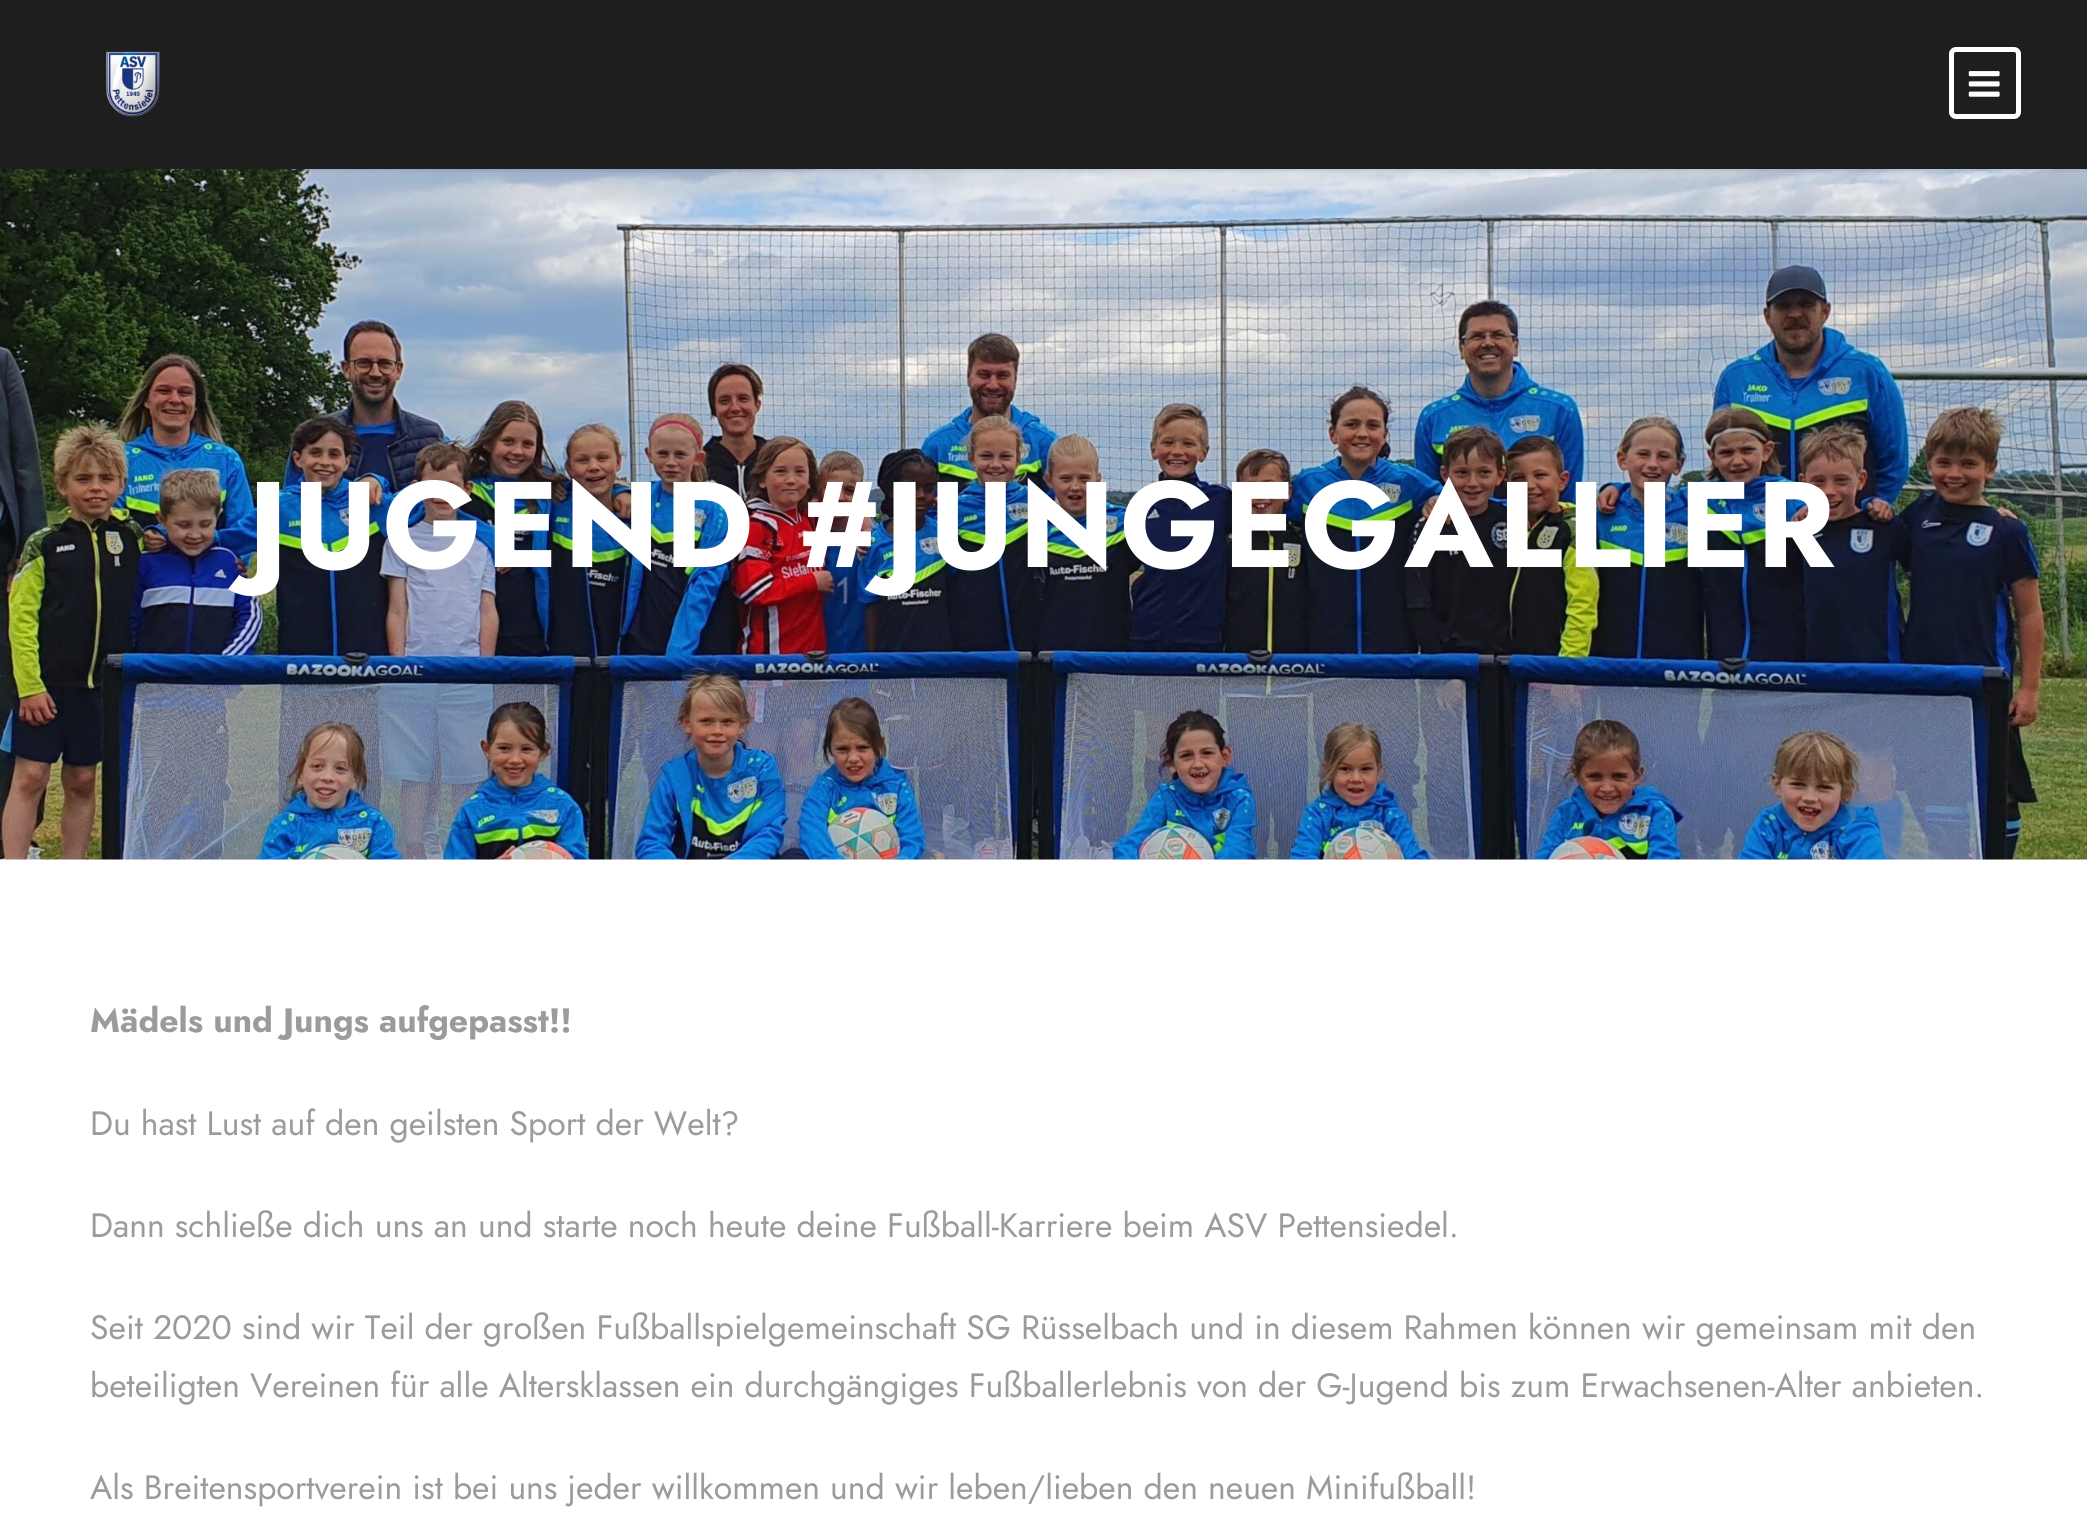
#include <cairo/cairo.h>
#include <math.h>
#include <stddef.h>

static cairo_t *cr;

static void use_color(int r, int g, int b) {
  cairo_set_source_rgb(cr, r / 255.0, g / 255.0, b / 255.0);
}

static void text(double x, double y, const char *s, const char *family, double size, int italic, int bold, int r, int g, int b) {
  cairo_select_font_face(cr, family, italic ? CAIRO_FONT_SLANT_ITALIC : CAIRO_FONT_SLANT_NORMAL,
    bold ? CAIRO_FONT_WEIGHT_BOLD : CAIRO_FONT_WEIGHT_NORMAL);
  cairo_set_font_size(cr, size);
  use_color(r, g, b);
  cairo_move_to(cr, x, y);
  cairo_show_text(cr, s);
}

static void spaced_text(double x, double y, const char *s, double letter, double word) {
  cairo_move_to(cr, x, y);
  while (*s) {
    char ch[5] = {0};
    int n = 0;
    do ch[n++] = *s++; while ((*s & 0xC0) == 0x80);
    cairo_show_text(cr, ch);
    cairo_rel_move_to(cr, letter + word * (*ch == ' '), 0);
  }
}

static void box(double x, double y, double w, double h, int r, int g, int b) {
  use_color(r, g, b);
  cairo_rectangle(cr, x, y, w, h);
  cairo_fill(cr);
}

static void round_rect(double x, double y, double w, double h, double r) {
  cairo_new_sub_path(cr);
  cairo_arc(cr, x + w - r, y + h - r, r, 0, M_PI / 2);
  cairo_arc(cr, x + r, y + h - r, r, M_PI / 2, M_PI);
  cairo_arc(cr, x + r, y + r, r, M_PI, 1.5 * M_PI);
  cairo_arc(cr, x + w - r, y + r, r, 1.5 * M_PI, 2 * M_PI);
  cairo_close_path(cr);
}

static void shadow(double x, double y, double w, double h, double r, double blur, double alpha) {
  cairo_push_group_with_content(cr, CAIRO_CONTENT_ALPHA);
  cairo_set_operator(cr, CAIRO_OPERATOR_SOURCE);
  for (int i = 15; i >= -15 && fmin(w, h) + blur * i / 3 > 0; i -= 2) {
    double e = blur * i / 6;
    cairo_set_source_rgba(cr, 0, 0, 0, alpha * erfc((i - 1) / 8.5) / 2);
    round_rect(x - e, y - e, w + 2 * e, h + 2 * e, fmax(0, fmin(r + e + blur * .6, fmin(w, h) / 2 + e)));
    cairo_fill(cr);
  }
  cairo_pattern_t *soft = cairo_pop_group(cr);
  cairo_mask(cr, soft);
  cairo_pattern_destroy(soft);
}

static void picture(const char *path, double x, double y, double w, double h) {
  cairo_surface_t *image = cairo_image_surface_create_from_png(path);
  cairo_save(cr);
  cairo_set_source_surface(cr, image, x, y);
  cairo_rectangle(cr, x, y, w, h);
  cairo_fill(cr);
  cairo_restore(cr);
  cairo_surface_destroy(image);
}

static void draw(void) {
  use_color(255, 255, 255);
  cairo_paint(cr);
  picture("img_03.png", 0, 169, 2087, 691);
  use_color(0, 0, 0);
  shadow(0, 2, 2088, 169, 0, 2, 0.1);
  box(0, 0, 2087, 169, 30, 30, 30);
  picture("img_01.png", 106, 51, 54, 66);
  round_rect(1951.5, 49.5, 67, 67, 4.5);
  use_color(255, 255, 255);
  cairo_set_line_width(cr, 5);
  cairo_stroke(cr);
  picture("img_02.png", 1968, 71, 32, 26);
  cairo_select_font_face(cr, "Jost", CAIRO_FONT_SLANT_NORMAL, CAIRO_FONT_WEIGHT_BOLD);
  cairo_set_font_size(cr, 121.5);
  spaced_text(248, 567, "JUGEND #JUNGEGALLIER", 4.5, 0);
  text(90, 1032, "Mädels und Jungs aufgepasst!!", "Jost", 33.75, 0, 1, 155, 155, 155);
  text(90, 1135, "Du hast Lust auf den geilsten Sport der Welt?", "Jost", 33.75, 0, 0, 155, 155, 155);
  text(90, 1237, "Dann schließe dich uns an und starte noch heute deine Fußball-Karriere beim ASV Pettensiedel.", "Jost", 33.75, 0, 0, 155, 155, 155);
  text(90, 1339, "Seit 2020 sind wir Teil der großen Fußballspielgemeinschaft SG Rüsselbach und in diesem Rahmen können wir gemeinsam mit den", "Jost", 33.75, 0, 0, 155, 155, 155);
  text(90, 1397, "beteiligten Vereinen für alle Altersklassen ein durchgängiges Fußballerlebnis von der G-Jugend bis zum Erwachsenen-Alter anbieten.", "Jost", 33.75, 0, 0, 155, 155, 155);
  text(90, 1499, "Als Breitensportverein ist bei uns jeder willkommen und wir leben/lieben den neuen Minifußball!", "Jost", 33.75, 0, 0, 155, 155, 155);
}

int main(void) {
  cairo_surface_t *surface = cairo_image_surface_create(CAIRO_FORMAT_RGB24, 2087, 1536);
  cr = cairo_create(surface);
  cairo_font_options_t *options = cairo_font_options_create();
  cairo_font_options_set_hint_metrics(options, CAIRO_HINT_METRICS_OFF);
  cairo_font_options_set_hint_style(options, CAIRO_HINT_STYLE_NONE);
  cairo_set_font_options(cr, options);
  cairo_set_miter_limit(cr, 4);
  draw();
  cairo_surface_write_to_png(surface, "out.png");
  cairo_font_options_destroy(options);
  cairo_destroy(cr);
  cairo_surface_destroy(surface);
  return 0;
}
